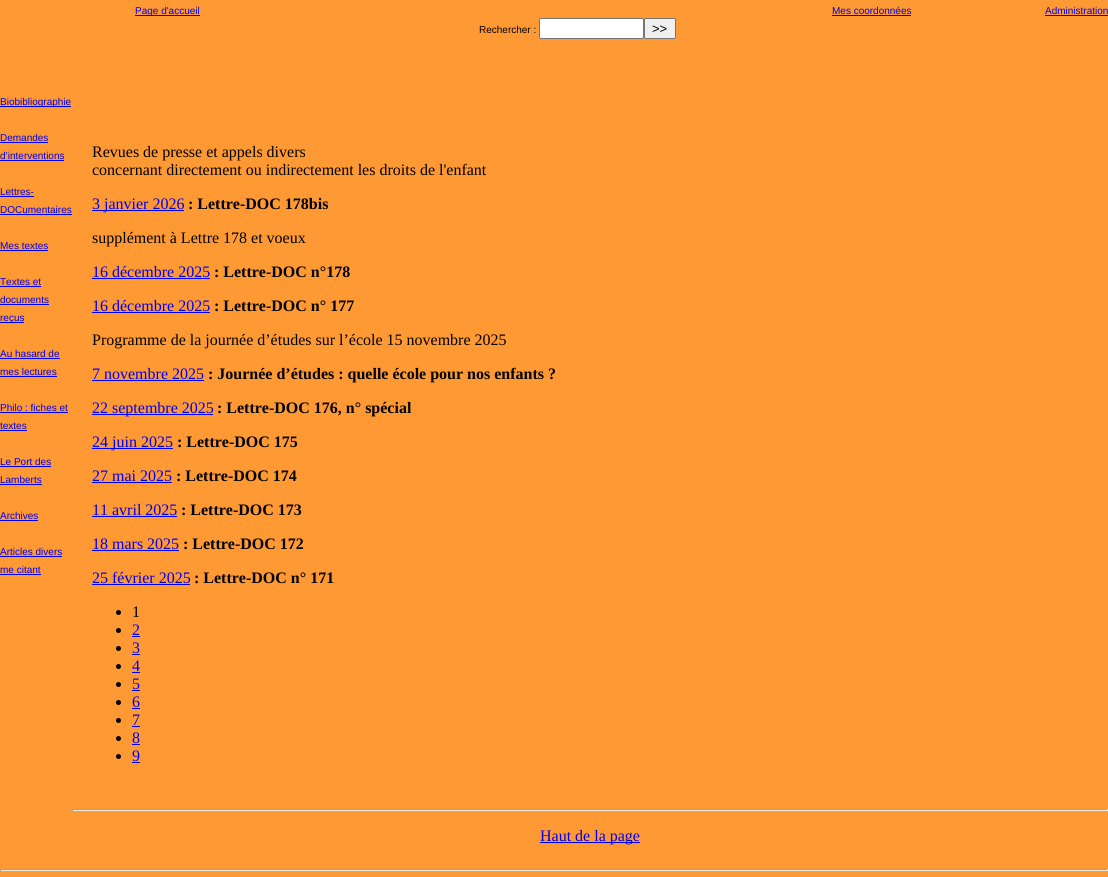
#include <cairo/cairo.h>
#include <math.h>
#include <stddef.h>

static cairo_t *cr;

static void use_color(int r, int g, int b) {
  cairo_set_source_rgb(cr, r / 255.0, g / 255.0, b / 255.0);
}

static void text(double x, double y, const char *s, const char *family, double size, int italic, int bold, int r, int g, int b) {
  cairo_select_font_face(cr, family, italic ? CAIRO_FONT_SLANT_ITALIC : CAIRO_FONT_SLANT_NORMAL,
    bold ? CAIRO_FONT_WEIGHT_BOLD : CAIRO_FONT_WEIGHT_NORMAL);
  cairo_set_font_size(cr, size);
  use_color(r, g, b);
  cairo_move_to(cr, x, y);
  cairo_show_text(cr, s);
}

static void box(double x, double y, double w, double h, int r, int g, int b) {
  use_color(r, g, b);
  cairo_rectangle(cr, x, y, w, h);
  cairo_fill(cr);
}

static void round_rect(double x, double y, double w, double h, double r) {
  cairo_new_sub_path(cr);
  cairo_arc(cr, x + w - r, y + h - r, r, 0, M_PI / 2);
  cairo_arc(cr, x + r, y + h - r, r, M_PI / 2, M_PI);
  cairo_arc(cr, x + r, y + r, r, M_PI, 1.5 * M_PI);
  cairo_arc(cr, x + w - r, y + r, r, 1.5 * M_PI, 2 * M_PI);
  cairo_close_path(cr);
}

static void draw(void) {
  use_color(255, 153, 51);
  cairo_paint(cr);
  box(135, 15, 65, 1, 0, 0, 238);
  box(832, 15, 79, 1, 0, 0, 238);
  box(1045, 15, 63, 1, 0, 0, 238);
  use_color(255, 255, 255);
  round_rect(539.5, 18.5, 104, 20, 1.5);
  cairo_fill_preserve(cr);
  use_color(118, 118, 118);
  cairo_set_line_width(cr, 1);
  cairo_stroke(cr);
  use_color(239, 239, 239);
  round_rect(644.5, 18.5, 31, 20, 1.5);
  cairo_fill_preserve(cr);
  use_color(118, 118, 118);
  cairo_stroke(cr);
  box(0, 106, 71, 1, 0, 0, 238);
  box(0, 142, 48, 1, 0, 0, 238);
  box(0, 160, 64, 1, 0, 0, 238);
  box(0, 196, 34, 1, 0, 0, 238);
  box(0, 214, 72, 1, 0, 0, 238);
  box(0, 250, 48, 1, 0, 0, 238);
  box(0, 286, 41, 1, 0, 0, 238);
  box(0, 304, 49, 1, 0, 0, 238);
  box(0, 322, 24, 1, 0, 0, 238);
  box(0, 358, 60, 1, 0, 0, 238);
  box(0, 376, 57, 1, 0, 0, 238);
  box(0, 412, 68, 1, 0, 0, 238);
  box(0, 430, 27, 1, 0, 0, 238);
  box(0, 466, 51, 1, 0, 0, 238);
  box(0, 484, 42, 1, 0, 0, 238);
  box(0, 520, 38, 1, 0, 0, 238);
  box(0, 556, 62, 1, 0, 0, 238);
  box(0, 574, 41, 1, 0, 0, 238);
  box(92, 210, 92, 1, 0, 0, 238);
  box(92, 278, 118, 1, 0, 0, 238);
  box(92, 312, 118, 1, 0, 0, 238);
  box(92, 380, 112, 1, 0, 0, 238);
  box(92, 414, 121, 1, 0, 0, 238);
  box(92, 448, 81, 1, 0, 0, 238);
  box(92, 482, 80, 1, 0, 0, 238);
  box(92, 516, 85, 1, 0, 0, 238);
  box(92, 550, 87, 1, 0, 0, 238);
  box(92, 584, 98, 1, 0, 0, 238);
  use_color(0, 0, 0);
  cairo_arc(cr, 118.5, 612.5, 2.5, 0, 2 * M_PI);
  cairo_fill(cr);
  cairo_arc(cr, 118.5, 630.5, 2.5, 0, 2 * M_PI);
  cairo_fill(cr);
  box(132, 636, 8, 1, 0, 0, 238);
  use_color(0, 0, 0);
  cairo_arc(cr, 118.5, 648.5, 2.5, 0, 2 * M_PI);
  cairo_fill(cr);
  box(132, 654, 8, 1, 0, 0, 238);
  use_color(0, 0, 0);
  cairo_arc(cr, 118.5, 666.5, 2.5, 0, 2 * M_PI);
  cairo_fill(cr);
  box(132, 672, 8, 1, 0, 0, 238);
  use_color(0, 0, 0);
  cairo_arc(cr, 118.5, 684.5, 2.5, 0, 2 * M_PI);
  cairo_fill(cr);
  box(132, 690, 8, 1, 0, 0, 238);
  use_color(0, 0, 0);
  cairo_arc(cr, 118.5, 702.5, 2.5, 0, 2 * M_PI);
  cairo_fill(cr);
  box(132, 708, 8, 1, 0, 0, 238);
  use_color(0, 0, 0);
  cairo_arc(cr, 118.5, 720.5, 2.5, 0, 2 * M_PI);
  cairo_fill(cr);
  box(132, 726, 8, 1, 0, 0, 238);
  use_color(0, 0, 0);
  cairo_arc(cr, 118.5, 738.5, 2.5, 0, 2 * M_PI);
  cairo_fill(cr);
  box(132, 744, 8, 1, 0, 0, 238);
  use_color(0, 0, 0);
  cairo_arc(cr, 118.5, 756.5, 2.5, 0, 2 * M_PI);
  cairo_fill(cr);
  box(132, 762, 8, 1, 0, 0, 238);
  box(72, 809, 1036, 1, 159, 159, 159);
  box(1107, 809, 1, 2, 238, 238, 238);
  box(72, 810, 1036, 1, 238, 238, 238);
  box(72, 809, 1, 2, 159, 159, 159);
  box(540, 842, 100, 1, 0, 0, 238);
  box(0, 869, 1108, 1, 159, 159, 159);
  box(1107, 869, 1, 2, 238, 238, 238);
  box(0, 870, 1108, 1, 238, 238, 238);
  box(0, 869, 1, 2, 159, 159, 159);
  text(135, 14, "Page d'accueil", "Liberation Sans", 10, 0, 0, 0, 0, 238);
  text(832, 14, "Mes coordonnées", "Liberation Sans", 10, 0, 0, 0, 0, 238);
  text(1045, 14, "Administration", "Liberation Sans", 10, 0, 0, 0, 0, 238);
  text(479, 33, "Rechercher :", "Liberation Sans", 10, 0, 0, 0, 0, 0);
  text(652, 33, ">>", "Liberation Sans", 13, 0, 0, 0, 0, 0);
  text(0, 105, "Biobibliographie", "Liberation Sans", 10, 0, 0, 0, 0, 238);
  text(0, 141, "Demandes", "Liberation Sans", 10, 0, 0, 0, 0, 238);
  text(0, 159, "d’interventions", "Liberation Sans", 10, 0, 0, 0, 0, 238);
  text(0, 195, "Lettres-", "Liberation Sans", 10, 0, 0, 0, 0, 238);
  text(0, 213, "DOCumentaires", "Liberation Sans", 10, 0, 0, 0, 0, 238);
  text(0, 249, "Mes textes", "Liberation Sans", 10, 0, 0, 0, 0, 238);
  text(0, 285, "Textes et", "Liberation Sans", 10, 0, 0, 0, 0, 238);
  text(0, 303, "documents", "Liberation Sans", 10, 0, 0, 0, 0, 238);
  text(0, 321, "reçus", "Liberation Sans", 10, 0, 0, 0, 0, 238);
  text(0, 357, "Au hasard de", "Liberation Sans", 10, 0, 0, 0, 0, 238);
  text(0, 375, "mes lectures", "Liberation Sans", 10, 0, 0, 0, 0, 238);
  text(0, 411, "Philo : fiches et", "Liberation Sans", 10, 0, 0, 0, 0, 238);
  text(0, 429, "textes", "Liberation Sans", 10, 0, 0, 0, 0, 238);
  text(0, 465, "Le Port des", "Liberation Sans", 10, 0, 0, 0, 0, 238);
  text(0, 483, "Lamberts", "Liberation Sans", 10, 0, 0, 0, 0, 238);
  text(0, 519, "Archives", "Liberation Sans", 10, 0, 0, 0, 0, 238);
  text(0, 555, "Articles divers", "Liberation Sans", 10, 0, 0, 0, 0, 238);
  text(0, 573, "me citant", "Liberation Sans", 10, 0, 0, 0, 0, 238);
  text(92, 157, "Revues de presse et appels divers", "Liberation Serif", 16, 0, 0, 0, 0, 0);
  text(92, 175, "concernant directement ou indirectement les droits de l'enfant", "Liberation Serif", 16, 0, 0, 0, 0, 0);
  text(92, 209, "3 janvier 2026", "Liberation Serif", 16, 0, 0, 0, 0, 238);
  text(188, 209, ": Lettre-DOC 178bis", "Liberation Serif", 16, 0, 1, 0, 0, 0);
  text(92, 243, "supplément à Lettre 178 et voeux", "Liberation Serif", 16, 0, 0, 0, 0, 0);
  text(92, 277, "16 décembre 2025", "Liberation Serif", 16, 0, 0, 0, 0, 238);
  text(214, 277, ": Lettre-DOC n°178", "Liberation Serif", 16, 0, 1, 0, 0, 0);
  text(92, 311, "16 décembre 2025", "Liberation Serif", 16, 0, 0, 0, 0, 238);
  text(214, 311, ": Lettre-DOC n° 177", "Liberation Serif", 16, 0, 1, 0, 0, 0);
  text(92, 345, "Programme de la journée d’études sur l’école 15 novembre 2025", "Liberation Serif", 16, 0, 0, 0, 0, 0);
  text(92, 379, "7 novembre 2025", "Liberation Serif", 16, 0, 0, 0, 0, 238);
  text(208, 379, ": Journée d’études : quelle école pour nos enfants ?", "Liberation Serif", 16, 0, 1, 0, 0, 0);
  text(92, 413, "22 septembre 2025", "Liberation Serif", 16, 0, 0, 0, 0, 238);
  text(217, 413, ": Lettre-DOC 176, n° spécial", "Liberation Serif", 16, 0, 1, 0, 0, 0);
  text(92, 447, "24 juin 2025", "Liberation Serif", 16, 0, 0, 0, 0, 238);
  text(177, 447, ": Lettre-DOC 175", "Liberation Serif", 16, 0, 1, 0, 0, 0);
  text(92, 481, "27 mai 2025", "Liberation Serif", 16, 0, 0, 0, 0, 238);
  text(176, 481, ": Lettre-DOC 174", "Liberation Serif", 16, 0, 1, 0, 0, 0);
  text(92, 515, "11 avril 2025", "Liberation Serif", 16, 0, 0, 0, 0, 238);
  text(181, 515, ": Lettre-DOC 173", "Liberation Serif", 16, 0, 1, 0, 0, 0);
  text(92, 549, "18 mars 2025", "Liberation Serif", 16, 0, 0, 0, 0, 238);
  text(183, 549, ": Lettre-DOC 172", "Liberation Serif", 16, 0, 1, 0, 0, 0);
  text(92, 583, "25 février 2025", "Liberation Serif", 16, 0, 0, 0, 0, 238);
  text(194, 583, ": Lettre-DOC n° 171", "Liberation Serif", 16, 0, 1, 0, 0, 0);
  text(132, 617, "1", "Liberation Serif", 16, 0, 0, 0, 0, 0);
  text(132, 635, "2", "Liberation Serif", 16, 0, 0, 0, 0, 238);
  text(132, 653, "3", "Liberation Serif", 16, 0, 0, 0, 0, 238);
  text(132, 671, "4", "Liberation Serif", 16, 0, 0, 0, 0, 238);
  text(132, 689, "5", "Liberation Serif", 16, 0, 0, 0, 0, 238);
  text(132, 707, "6", "Liberation Serif", 16, 0, 0, 0, 0, 238);
  text(132, 725, "7", "Liberation Serif", 16, 0, 0, 0, 0, 238);
  text(132, 743, "8", "Liberation Serif", 16, 0, 0, 0, 0, 238);
  text(132, 761, "9", "Liberation Serif", 16, 0, 0, 0, 0, 238);
  text(540, 841, "Haut de la page", "Liberation Serif", 16, 0, 0, 0, 0, 238);
}

int main(void) {
  cairo_surface_t *surface = cairo_image_surface_create(CAIRO_FORMAT_RGB24, 1108, 877);
  cr = cairo_create(surface);
  cairo_font_options_t *options = cairo_font_options_create();
  cairo_font_options_set_hint_metrics(options, CAIRO_HINT_METRICS_OFF);
  cairo_font_options_set_hint_style(options, CAIRO_HINT_STYLE_NONE);
  cairo_set_font_options(cr, options);
  cairo_set_miter_limit(cr, 4);
  draw();
  cairo_surface_write_to_png(surface, "out.png");
  cairo_font_options_destroy(options);
  cairo_destroy(cr);
  cairo_surface_destroy(surface);
  return 0;
}
